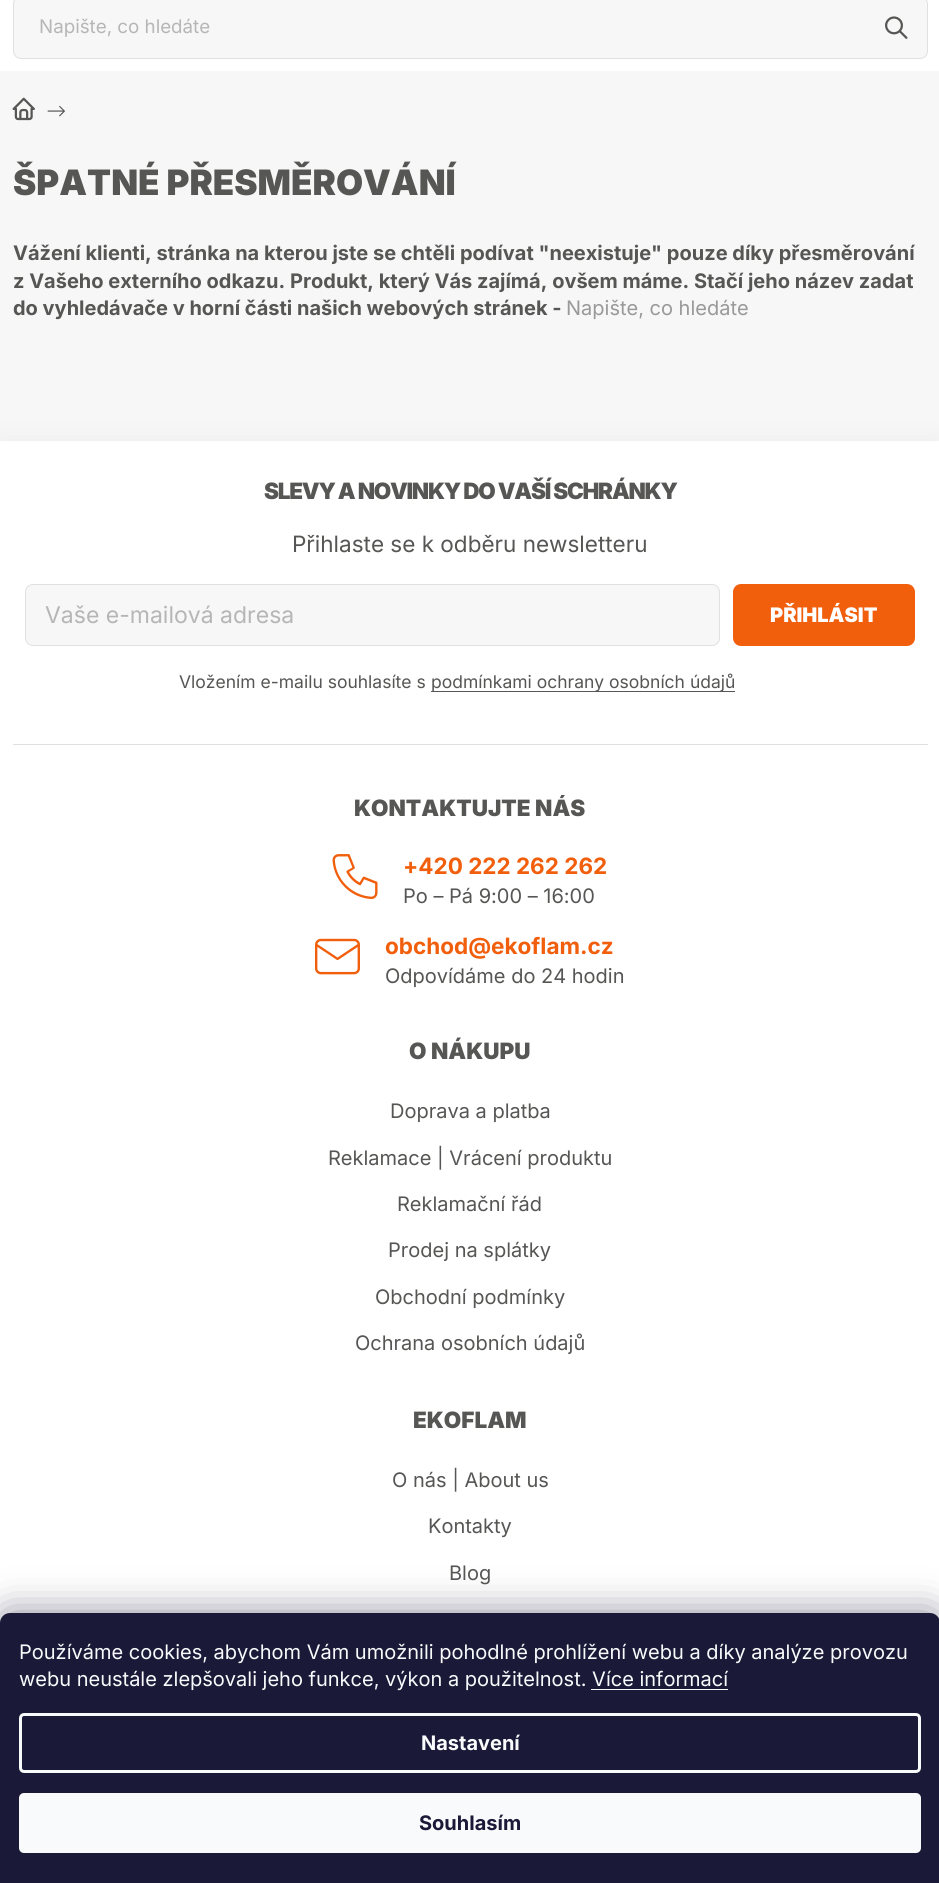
#include <cairo/cairo.h>
#include <math.h>
#include <stddef.h>

static cairo_t *cr;

static void use_color(int r, int g, int b) {
  cairo_set_source_rgb(cr, r / 255.0, g / 255.0, b / 255.0);
}

static void text(double x, double y, const char *s, const char *family, double size, int italic, int bold, int r, int g, int b) {
  cairo_select_font_face(cr, family, italic ? CAIRO_FONT_SLANT_ITALIC : CAIRO_FONT_SLANT_NORMAL,
    bold ? CAIRO_FONT_WEIGHT_BOLD : CAIRO_FONT_WEIGHT_NORMAL);
  cairo_set_font_size(cr, size);
  use_color(r, g, b);
  cairo_move_to(cr, x, y);
  cairo_show_text(cr, s);
}

static void spaced_text(double x, double y, const char *s, double letter, double word) {
  cairo_move_to(cr, x, y);
  while (*s) {
    char ch[5] = {0};
    int n = 0;
    do ch[n++] = *s++; while ((*s & 0xC0) == 0x80);
    cairo_show_text(cr, ch);
    cairo_rel_move_to(cr, letter + word * (*ch == ' '), 0);
  }
}

static void box(double x, double y, double w, double h, int r, int g, int b) {
  use_color(r, g, b);
  cairo_rectangle(cr, x, y, w, h);
  cairo_fill(cr);
}

static void round_rect(double x, double y, double w, double h, double r) {
  cairo_new_sub_path(cr);
  cairo_arc(cr, x + w - r, y + h - r, r, 0, M_PI / 2);
  cairo_arc(cr, x + r, y + h - r, r, M_PI / 2, M_PI);
  cairo_arc(cr, x + r, y + r, r, M_PI, 1.5 * M_PI);
  cairo_arc(cr, x + w - r, y + r, r, 1.5 * M_PI, 2 * M_PI);
  cairo_close_path(cr);
}

static void shadow(double x, double y, double w, double h, double r, double blur, double alpha) {
  cairo_push_group_with_content(cr, CAIRO_CONTENT_ALPHA);
  cairo_set_operator(cr, CAIRO_OPERATOR_SOURCE);
  for (int i = 15; i >= -15 && fmin(w, h) + blur * i / 3 > 0; i -= 2) {
    double e = blur * i / 6;
    cairo_set_source_rgba(cr, 0, 0, 0, alpha * erfc((i - 1) / 8.5) / 2);
    round_rect(x - e, y - e, w + 2 * e, h + 2 * e, fmax(0, fmin(r + e + blur * .6, fmin(w, h) / 2 + e)));
    cairo_fill(cr);
  }
  cairo_pattern_t *soft = cairo_pop_group(cr);
  cairo_mask(cr, soft);
  cairo_pattern_destroy(soft);
}

static void picture(const char *path, double x, double y, double w, double h) {
  cairo_surface_t *image = cairo_image_surface_create_from_png(path);
  cairo_save(cr);
  cairo_set_source_surface(cr, image, x, y);
  cairo_rectangle(cr, x, y, w, h);
  cairo_fill(cr);
  cairo_restore(cr);
  cairo_surface_destroy(image);
}

static void draw(void) {
  use_color(247, 247, 247);
  cairo_paint(cr);
  box(0, 0, 939, 71, 255, 255, 255);
  use_color(247, 247, 247);
  round_rect(13.5, -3.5, 914, 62, 7.5);
  cairo_fill_preserve(cr);
  use_color(225, 224, 224);
  cairo_set_line_width(cr, 1);
  cairo_stroke(cr);
  picture("img_01.png", 885, 16, 23, 23);
  picture("img_02.png", 12, 97, 23, 24);
  picture("img_03.png", 47, 105, 18, 12);
  use_color(0, 0, 0);
  shadow(0, 441, 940, 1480, 0, 12.5, 0.05);
  box(0, 441, 939, 1182, 255, 255, 255);
  box(13, 744, 915, 1, 225, 224, 224);
  use_color(247, 247, 247);
  round_rect(25.5, 584.5, 694, 61, 7.5);
  cairo_fill_preserve(cr);
  use_color(225, 224, 224);
  cairo_stroke(cr);
  use_color(241, 95, 13);
  round_rect(733, 584, 182, 62, 8);
  cairo_fill(cr);
  box(431, 691, 304, 1, 86, 86, 85);
  picture("img_04.png", 332, 854, 46, 46);
  picture("img_05.png", 315, 938, 45, 37);
  use_color(27, 25, 57);
  shadow(0, 1613, 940, 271, 10, 19, 0.5);
  use_color(26, 25, 55);
  cairo_new_path(cr);
  cairo_move_to(cr, 10, 1613);
  cairo_line_to(cr, 930, 1613);
  cairo_curve_to(cr, 935.5, 1613, 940, 1617.5, 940, 1623);
  cairo_line_to(cr, 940, 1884);
  cairo_line_to(cr, 0, 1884);
  cairo_line_to(cr, 0, 1623);
  cairo_curve_to(cr, 0, 1617.5, 4.5, 1613, 10, 1613);
  cairo_close_path(cr);
  cairo_fill(cr);
  box(591, 1689, 137, 1, 248, 250, 251);
  round_rect(20.5, 1714.5, 899, 57, 3.5);
  cairo_set_line_width(cr, 3);
  cairo_stroke(cr);
  round_rect(19, 1793, 902, 60, 5);
  cairo_fill(cr);
  text(39, 33, "Napište, co hledáte", "Inter", 18.75, 0, 0, 182, 182, 182);
  text(13, 195, "ŠPATNÉ PŘESMĚROVÁNÍ", "Inter Black", 35, 0, 0, 86, 86, 85);
  text(13, 260, "Vážení klienti, stránka na kterou jste se chtěli podívat \"neexistuje\" pouze díky přesměrování", "Inter", 20, 0, 1, 86, 86, 85);
  text(13, 288, "z Vašeho externího odkazu. Produkt, který Vás zajímá, ovšem máme. Stačí jeho název zadat", "Inter", 20, 0, 1, 86, 86, 85);
  text(13, 315, "do vyhledávače v horní části našich webových stránek -", "Inter", 20, 0, 1, 86, 86, 85);
  text(566, 315, "Napište, co hledáte", "Inter", 20, 0, 0, 153, 153, 153);
  cairo_select_font_face(cr, "Inter Black", CAIRO_FONT_SLANT_NORMAL, CAIRO_FONT_WEIGHT_NORMAL);
  cairo_set_font_size(cr, 22.5);
  use_color(86, 86, 85);
  spaced_text(264, 499, "SLEVY A NOVINKY DO VAŠÍ SCHRÁNKY", -1.25, 0);
  text(292, 552, "Přihlaste se k odběru newsletteru", "Inter", 22.5, 0, 0, 86, 86, 85);
  text(45, 623, "Vaše e-mailová adresa", "Inter", 23, 0, 0, 182, 182, 182);
  text(770, 622, "PŘIHLÁSIT", "Inter Black", 20, 0, 0, 255, 255, 255);
  text(179, 688, "Vložením e-mailu souhlasíte s", "Inter", 17.5, 0, 0, 86, 86, 85);
  text(431, 688, "podmínkami ochrany osobních údajů", "Inter", 17.5, 0, 0, 86, 86, 85);
  cairo_save(cr);
  cairo_rectangle(cr, 13, 795, 915, 194);
  cairo_clip(cr);
  text(354, 816, "KONTAKTUJTE NÁS", "Inter Black", 22.5, 0, 0, 86, 86, 85);
  cairo_restore(cr);
  text(403, 874, "+420 222 262 262", "Inter", 22.5, 0, 1, 241, 95, 13);
  text(403, 903, "Po – Pá 9:00 – 16:00", "Inter", 20, 0, 0, 86, 86, 85);
  text(385, 954, "obchod@ekoflam.cz", "Inter", 22.5, 0, 1, 241, 95, 13);
  text(385, 983, "Odpovídáme do 24 hodin", "Inter", 20, 0, 0, 86, 86, 85);
  text(409, 1059, "O NÁKUPU", "Inter Black", 22.5, 0, 0, 86, 86, 85);
  text(390, 1118, "Doprava a platba", "Inter", 20, 0, 0, 86, 86, 85);
  text(328, 1165, "Reklamace | Vrácení produktu", "Inter", 20, 0, 0, 86, 86, 85);
  text(397, 1211, "Reklamační řád", "Inter", 20, 0, 0, 86, 86, 85);
  text(388, 1257, "Prodej na splátky", "Inter", 20, 0, 0, 86, 86, 85);
  text(375, 1304, "Obchodní podmínky", "Inter", 20, 0, 0, 86, 86, 85);
  text(355, 1350, "Ochrana osobních údajů", "Inter", 20, 0, 0, 86, 86, 85);
  text(413, 1428, "EKOFLAM", "Inter Black", 22.5, 0, 0, 86, 86, 85);
  text(392, 1487, "O nás | About us", "Inter", 20, 0, 0, 86, 86, 85);
  text(428, 1533, "Kontakty", "Inter", 20, 0, 0, 86, 86, 85);
  text(449, 1580, "Blog", "Inter", 20, 0, 0, 86, 86, 85);
  text(19, 1659, "Používáme cookies, abychom Vám umožnili pohodlné prohlížení webu a díky analýze provozu", "Inter", 20, 0, 0, 248, 250, 251);
  text(19, 1686, "webu neustále zlepšovali jeho funkce, výkon a použitelnost. Více informací", "Inter", 20, 0, 0, 248, 250, 251);
  text(421, 1750, "Nastavení", "Inter", 20, 0, 1, 248, 250, 251);
  text(419, 1830, "Souhlasím", "Inter", 20, 0, 1, 26, 25, 55);
}

int main(void) {
  cairo_surface_t *surface = cairo_image_surface_create(CAIRO_FORMAT_RGB24, 939, 1883);
  cr = cairo_create(surface);
  cairo_font_options_t *options = cairo_font_options_create();
  cairo_font_options_set_hint_metrics(options, CAIRO_HINT_METRICS_OFF);
  cairo_font_options_set_hint_style(options, CAIRO_HINT_STYLE_NONE);
  cairo_set_font_options(cr, options);
  cairo_set_miter_limit(cr, 4);
  draw();
  cairo_surface_write_to_png(surface, "out.png");
  cairo_font_options_destroy(options);
  cairo_destroy(cr);
  cairo_surface_destroy(surface);
  return 0;
}
